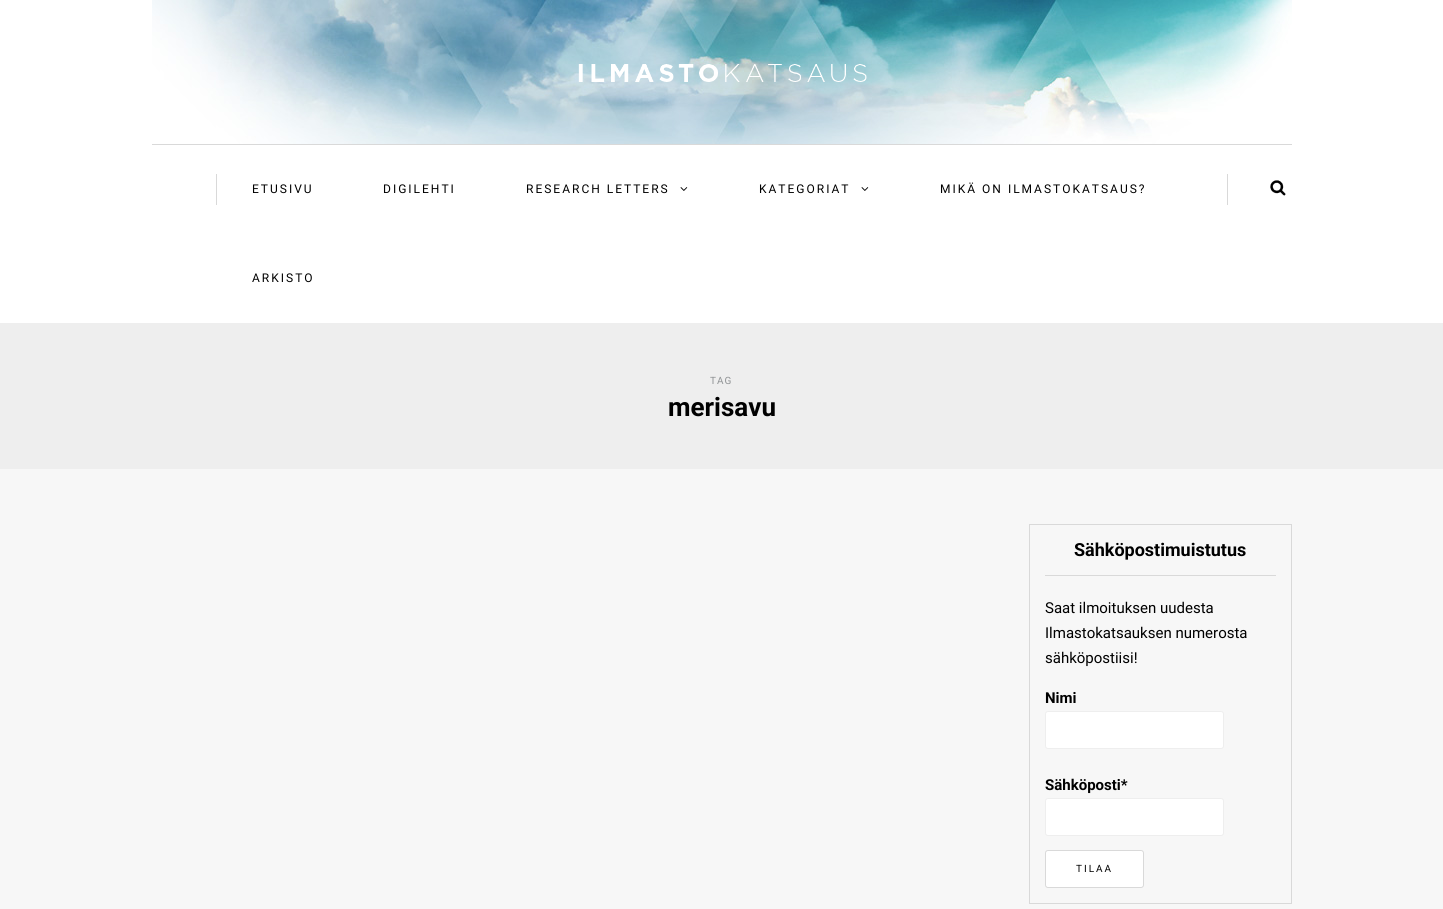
#include <cairo/cairo.h>
#include <math.h>
#include <stddef.h>

static cairo_t *cr;

static void use_color(int r, int g, int b) {
  cairo_set_source_rgb(cr, r / 255.0, g / 255.0, b / 255.0);
}

static void text(double x, double y, const char *s, const char *family, double size, int italic, int bold, int r, int g, int b) {
  cairo_select_font_face(cr, family, italic ? CAIRO_FONT_SLANT_ITALIC : CAIRO_FONT_SLANT_NORMAL,
    bold ? CAIRO_FONT_WEIGHT_BOLD : CAIRO_FONT_WEIGHT_NORMAL);
  cairo_set_font_size(cr, size);
  use_color(r, g, b);
  cairo_move_to(cr, x, y);
  cairo_show_text(cr, s);
}

static void spaced_text(double x, double y, const char *s, double letter, double word) {
  cairo_move_to(cr, x, y);
  while (*s) {
    char ch[5] = {0};
    int n = 0;
    do ch[n++] = *s++; while ((*s & 0xC0) == 0x80);
    cairo_show_text(cr, ch);
    cairo_rel_move_to(cr, letter + word * (*ch == ' '), 0);
  }
}

static void box(double x, double y, double w, double h, int r, int g, int b) {
  use_color(r, g, b);
  cairo_rectangle(cr, x, y, w, h);
  cairo_fill(cr);
}

static void round_rect(double x, double y, double w, double h, double r) {
  cairo_new_sub_path(cr);
  cairo_arc(cr, x + w - r, y + h - r, r, 0, M_PI / 2);
  cairo_arc(cr, x + r, y + h - r, r, M_PI / 2, M_PI);
  cairo_arc(cr, x + r, y + r, r, M_PI, 1.5 * M_PI);
  cairo_arc(cr, x + w - r, y + r, r, 1.5 * M_PI, 2 * M_PI);
  cairo_close_path(cr);
}

static void picture(const char *path, double x, double y, double w, double h) {
  cairo_surface_t *image = cairo_image_surface_create_from_png(path);
  cairo_save(cr);
  cairo_set_source_surface(cr, image, x, y);
  cairo_rectangle(cr, x, y, w, h);
  cairo_fill(cr);
  cairo_restore(cr);
  cairo_surface_destroy(image);
}

static void draw(void) {
  use_color(247, 247, 247);
  cairo_paint(cr);
  box(0, 0, 1443, 323, 255, 255, 255);
  picture("img_01.png", 152, 0, 1140, 144);
  picture("img_02.png", 578, 64, 289, 18);
  box(216, 174, 1, 31, 217, 217, 217);
  box(152, 144, 1140, 1, 217, 217, 217);
  picture("img_03.png", 680, 187, 8, 4);
  picture("img_03.png", 861, 187, 8, 4);
  box(1227, 174, 1, 31, 217, 217, 217);
  picture("img_04.png", 1270, 180, 16, 16);
  box(0, 323, 1443, 146, 238, 238, 238);
  cairo_rectangle(cr, 1029.5, 524.5, 262, 379);
  use_color(217, 217, 217);
  cairo_set_line_width(cr, 1);
  cairo_stroke(cr);
  box(1045, 575, 231, 1, 217, 217, 217);
  use_color(255, 255, 255);
  round_rect(1045.5, 711.5, 178, 37, 2.5);
  cairo_fill_preserve(cr);
  use_color(238, 238, 238);
  cairo_stroke(cr);
  use_color(255, 255, 255);
  round_rect(1045.5, 798.5, 178, 37, 2.5);
  cairo_fill_preserve(cr);
  use_color(238, 238, 238);
  cairo_stroke(cr);
  use_color(255, 255, 255);
  round_rect(1045.5, 850.5, 98, 37, 2.5);
  cairo_fill_preserve(cr);
  use_color(217, 217, 217);
  cairo_stroke(cr);
  cairo_select_font_face(cr, "Roboto", CAIRO_FONT_SLANT_NORMAL, CAIRO_FONT_WEIGHT_NORMAL);
  cairo_set_font_size(cr, 12);
  use_color(0, 0, 0);
  spaced_text(252, 193, "ETUSIVU", 2, 0);
  spaced_text(383, 193, "DIGILEHTI", 2, 0);
  spaced_text(526, 193, "RESEARCH LETTERS", 2, 0);
  spaced_text(759, 193, "KATEGORIAT", 2, 0);
  spaced_text(940, 193, "MIKÄ ON ILMASTOKATSAUS?", 2, 0);
  spaced_text(252, 282, "ARKISTO", 2, 0);
  cairo_set_font_size(cr, 10);
  use_color(143, 146, 148);
  spaced_text(710, 384, "TAG", 1, 0);
  text(668, 416, "merisavu", "Roboto", 26, 0, 1, 0, 0, 0);
  text(1074, 556, "Sähköpostimuistutus", "Roboto", 18, 0, 1, 0, 0, 0);
  text(1045, 613, "Saat ilmoituksen uudesta", "Roboto", 15, 0, 0, 0, 0, 0);
  text(1045, 638, "Ilmastokatsauksen numerosta", "Roboto", 15, 0, 0, 0, 0, 0);
  text(1045, 663, "sähköpostiisi!", "Roboto", 15, 0, 0, 0, 0, 0);
  text(1045, 703, "Nimi", "Roboto", 15, 0, 1, 0, 0, 0);
  text(1045, 790, "Sähköposti*", "Roboto", 15, 0, 1, 0, 0, 0);
  cairo_select_font_face(cr, "Roboto", CAIRO_FONT_SLANT_NORMAL, CAIRO_FONT_WEIGHT_NORMAL);
  cairo_set_font_size(cr, 10);
  spaced_text(1076, 872, "TILAA", 2, 0);
}

int main(void) {
  cairo_surface_t *surface = cairo_image_surface_create(CAIRO_FORMAT_RGB24, 1443, 909);
  cr = cairo_create(surface);
  cairo_font_options_t *options = cairo_font_options_create();
  cairo_font_options_set_hint_metrics(options, CAIRO_HINT_METRICS_OFF);
  cairo_font_options_set_hint_style(options, CAIRO_HINT_STYLE_NONE);
  cairo_set_font_options(cr, options);
  cairo_set_miter_limit(cr, 4);
  draw();
  cairo_surface_write_to_png(surface, "out.png");
  cairo_font_options_destroy(options);
  cairo_destroy(cr);
  cairo_surface_destroy(surface);
  return 0;
}
